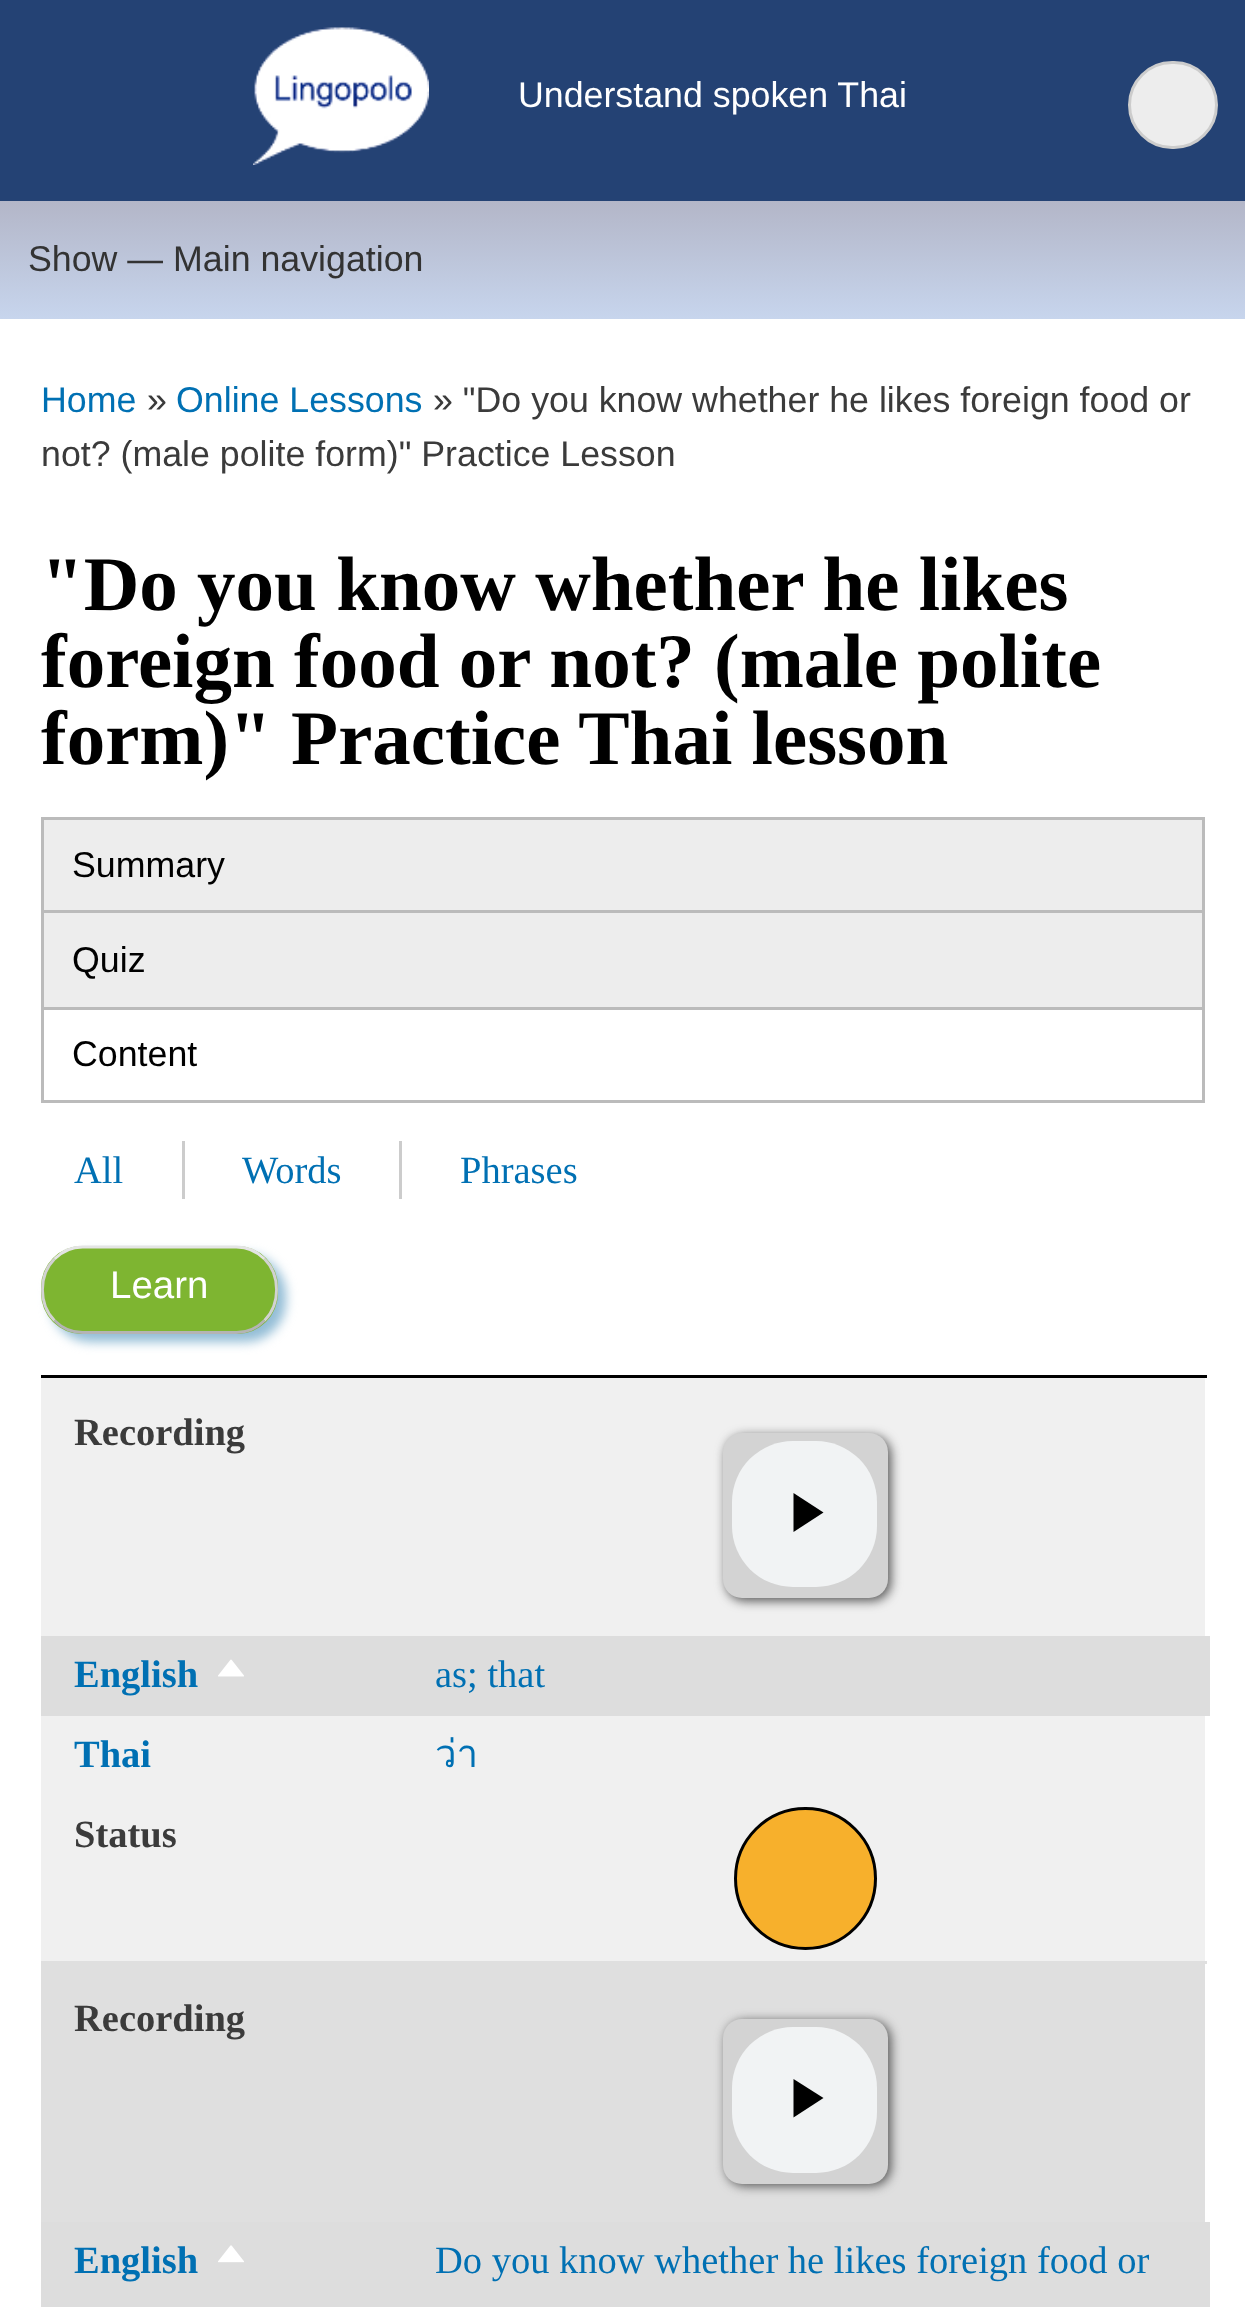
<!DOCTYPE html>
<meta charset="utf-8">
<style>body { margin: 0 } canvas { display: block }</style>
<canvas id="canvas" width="1245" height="2307"></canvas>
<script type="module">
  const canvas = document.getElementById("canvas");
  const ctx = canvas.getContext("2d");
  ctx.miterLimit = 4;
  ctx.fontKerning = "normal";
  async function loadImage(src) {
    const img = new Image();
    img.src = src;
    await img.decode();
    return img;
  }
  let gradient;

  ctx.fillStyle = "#244274";
  ctx.fillRect(0, 0, 1245, 2307);
  ctx.fillStyle = "#ffffff";
  ctx.fillRect(0, 319, 1245, 1988);
  ctx.drawImage(await loadImage("img1.png"), 253, 27, 176, 138);
  ctx.font = "35.75px Liberation Sans";
  ctx.fillText("Understand spoken Thai", 518, 107);
  ctx.fillStyle = "#ededed";
  ctx.beginPath();
  ctx.roundRect(1129.5, 62.5, 87, 85, 42.5);
  ctx.fill();
  ctx.strokeStyle = "#cccccc";
  ctx.lineWidth = 3;
  ctx.stroke();
  gradient = ctx.createLinearGradient(623, 201, 623, 319);
  gradient.addColorStop(0, "#b3b6c8");
  gradient.addColorStop(1, "#c7d5ed");
  ctx.fillStyle = gradient;
  ctx.fillRect(0, 201, 1245, 118);
  ctx.fillStyle = "#333333";
  ctx.fillText("Show — Main navigation", 28, 271);
  ctx.fillStyle = "#0070b3";
  ctx.fillText("Home", 41, 412);
  ctx.fillStyle = "#3b3b3b";
  ctx.fillText("»", 147, 412);
  ctx.fillStyle = "#0070b3";
  ctx.fillText("Online Lessons", 176, 412);
  ctx.fillStyle = "#3b3b3b";
  ctx.fillText("» \"Do you know whether he likes foreign food or", 433, 412);
  ctx.fillText("not? (male polite form)\" Practice Lesson", 41, 466);
  ctx.font = "bold 77px Liberation Serif";
  ctx.fillStyle = "#000000";
  ctx.fillText("\"Do you know whether he likes", 41, 610);
  ctx.fillText("foreign food or not? (male polite", 41, 687);
  ctx.fillText("form)\" Practice Thai lesson", 41, 764);
  ctx.fillStyle = "#bbbbbb";
  ctx.fillRect(41, 1100, 1164, 3);
  ctx.fillStyle = "#ededed";
  ctx.fillRect(44, 820, 1158, 90);
  ctx.fillStyle = "#bbbbbb";
  ctx.fillRect(41, 817, 1164, 3);
  ctx.fillRect(1202, 817, 3, 93);
  ctx.fillRect(41, 817, 3, 93);
  ctx.font = "35.75px Liberation Sans";
  ctx.fillStyle = "#000000";
  ctx.fillText("Summary", 72, 877);
  ctx.fillStyle = "#ededed";
  ctx.fillRect(44, 913, 1158, 94);
  ctx.fillStyle = "#bbbbbb";
  ctx.fillRect(41, 910, 1164, 3);
  ctx.fillRect(1202, 910, 3, 97);
  ctx.fillRect(41, 910, 3, 97);
  ctx.fillStyle = "#000000";
  ctx.fillText("Quiz", 72, 972);
  ctx.fillStyle = "#bbbbbb";
  ctx.fillRect(41, 1007, 1164, 3);
  ctx.fillRect(1202, 1007, 3, 93);
  ctx.fillRect(41, 1007, 3, 93);
  ctx.fillStyle = "#000000";
  ctx.fillText("Content", 72, 1066);
  ctx.fillStyle = "#cccccc";
  ctx.fillRect(182, 1141, 3, 58);
  ctx.font = "38.5px Liberation Serif";
  ctx.fillStyle = "#0070b3";
  ctx.fillText("All", 74, 1183);
  ctx.fillStyle = "#cccccc";
  ctx.fillRect(399, 1141, 3, 58);
  ctx.fillStyle = "#0070b3";
  ctx.fillText("Words", 242, 1183);
  ctx.fillText("Phrases", 460, 1183);
  ctx.fillStyle = "#93bdd6";
  ctx.filter = "blur(5.5px)";
  ctx.beginPath();
  ctx.roundRect(50, 1254, 236, 88, 41);
  ctx.fill();
  ctx.filter = "none";
  ctx.fillStyle = "#7eb531";
  ctx.beginPath();
  ctx.roundRect(41, 1246, 237, 88, 41);
  ctx.fill();
  ctx.beginPath();
  ctx.moveTo(54.5, 1259);
  ctx.bezierCurveTo(62, 1251.5, 72, 1247, 82.5, 1247);
  ctx.lineTo(236.5, 1247);
  ctx.bezierCurveTo(247, 1247, 257, 1251.5, 264.5, 1259);
  ctx.strokeStyle = "#e4e4e4";
  ctx.lineWidth = 2.8;
  ctx.stroke();
  ctx.beginPath();
  ctx.moveTo(264.5, 1259);
  ctx.bezierCurveTo(280.5, 1275, 280.5, 1304.5, 264.5, 1320.5);
  ctx.strokeStyle = "#d2d2d2";
  ctx.stroke();
  ctx.beginPath();
  ctx.moveTo(264.5, 1320.5);
  ctx.bezierCurveTo(257, 1328, 247, 1332.5, 236.5, 1332.5);
  ctx.lineTo(82.5, 1332.5);
  ctx.bezierCurveTo(72, 1332.5, 62, 1328, 54.5, 1320.5);
  ctx.strokeStyle = "#b4b4b4";
  ctx.stroke();
  ctx.beginPath();
  ctx.moveTo(54.5, 1320.5);
  ctx.bezierCurveTo(38.5, 1304.5, 38.5, 1275, 54.5, 1259);
  ctx.strokeStyle = "#d2d2d2";
  ctx.stroke();
  ctx.font = "38.5px Liberation Sans";
  ctx.fillStyle = "#ffffff";
  ctx.fillText("Learn", 110, 1298);
  ctx.fillStyle = "#000000";
  ctx.fillRect(41, 1375, 1166, 3);
  ctx.fillStyle = "#f0f0f0";
  ctx.fillRect(41, 1378, 1164, 583);
  ctx.fillStyle = "#dfdfdf";
  ctx.fillRect(41, 1961, 1166, 3);
  ctx.font = "bold 38.5px Liberation Serif";
  ctx.fillStyle = "#3b3b3b";
  ctx.fillText("Recording", 74, 1445);
  ctx.fillStyle = "#555555";
  ctx.filter = "blur(5.5px)";
  ctx.beginPath();
  ctx.roundRect(726, 1436, 165, 165, 19);
  ctx.fill();
  ctx.filter = "none";
  ctx.fillStyle = "#d3d3d3";
  ctx.beginPath();
  ctx.roundRect(723, 1433, 165, 165, 19);
  ctx.fill();
  ctx.fillStyle = "#f1f3f4";
  ctx.beginPath();
  ctx.roundRect(732, 1441, 145, 146, 61);
  ctx.fill();
  ctx.fillStyle = "#000000";
  ctx.beginPath();
  ctx.moveTo(793.5, 1493);
  ctx.lineTo(793.5, 1532);
  ctx.lineTo(823.5, 1512.5);
  ctx.closePath();
  ctx.fill("evenodd");
  ctx.fillStyle = "#dddddd";
  ctx.fillRect(41, 1636, 1169, 80);
  ctx.fillStyle = "#0070b3";
  ctx.fillText("English", 74, 1687);
  ctx.drawImage(await loadImage("img2.png"), 218, 1659, 26, 18);
  ctx.font = "38.5px Liberation Serif";
  ctx.fillText("as; that", 435, 1687);
  ctx.font = "bold 38.5px Liberation Serif";
  ctx.fillText("Thai", 74, 1767);
  ctx.font = "38.5px Loma";
  ctx.fillText("ว่า", 435, 1767);
  ctx.font = "bold 38.5px Liberation Serif";
  ctx.fillStyle = "#3b3b3b";
  ctx.fillText("Status", 74, 1847);
  ctx.fillStyle = "#f7b02c";
  ctx.beginPath();
  ctx.arc(805.5, 1878.5, 70, 0, Math.PI * 2);
  ctx.fill();
  ctx.strokeStyle = "#000000";
  ctx.lineWidth = 3;
  ctx.stroke();
  ctx.fillStyle = "#dfdfdf";
  ctx.fillRect(41, 1964, 1164, 258);
  ctx.fillStyle = "#3b3b3b";
  ctx.fillText("Recording", 74, 2031);
  ctx.fillStyle = "#555555";
  ctx.filter = "blur(5.5px)";
  ctx.beginPath();
  ctx.roundRect(726, 2021, 165, 165, 19);
  ctx.fill();
  ctx.filter = "none";
  ctx.fillStyle = "#d3d3d3";
  ctx.beginPath();
  ctx.roundRect(723, 2019, 165, 165, 19);
  ctx.fill();
  ctx.fillStyle = "#f1f3f4";
  ctx.beginPath();
  ctx.roundRect(732, 2027, 145, 146, 61);
  ctx.fill();
  ctx.fillStyle = "#000000";
  ctx.beginPath();
  ctx.moveTo(793.5, 2079);
  ctx.lineTo(793.5, 2117.5);
  ctx.lineTo(823.5, 2098);
  ctx.closePath();
  ctx.fill("evenodd");
  ctx.fillStyle = "#dddddd";
  ctx.fillRect(41, 2222, 1169, 85);
  ctx.fillStyle = "#0070b3";
  ctx.fillText("English", 74, 2273);
  ctx.drawImage(await loadImage("img3.png"), 218, 2245, 26, 18);
  ctx.font = "38.5px Liberation Serif";
  ctx.fillText("Do you know whether he likes foreign food or", 435, 2273);
</script>
